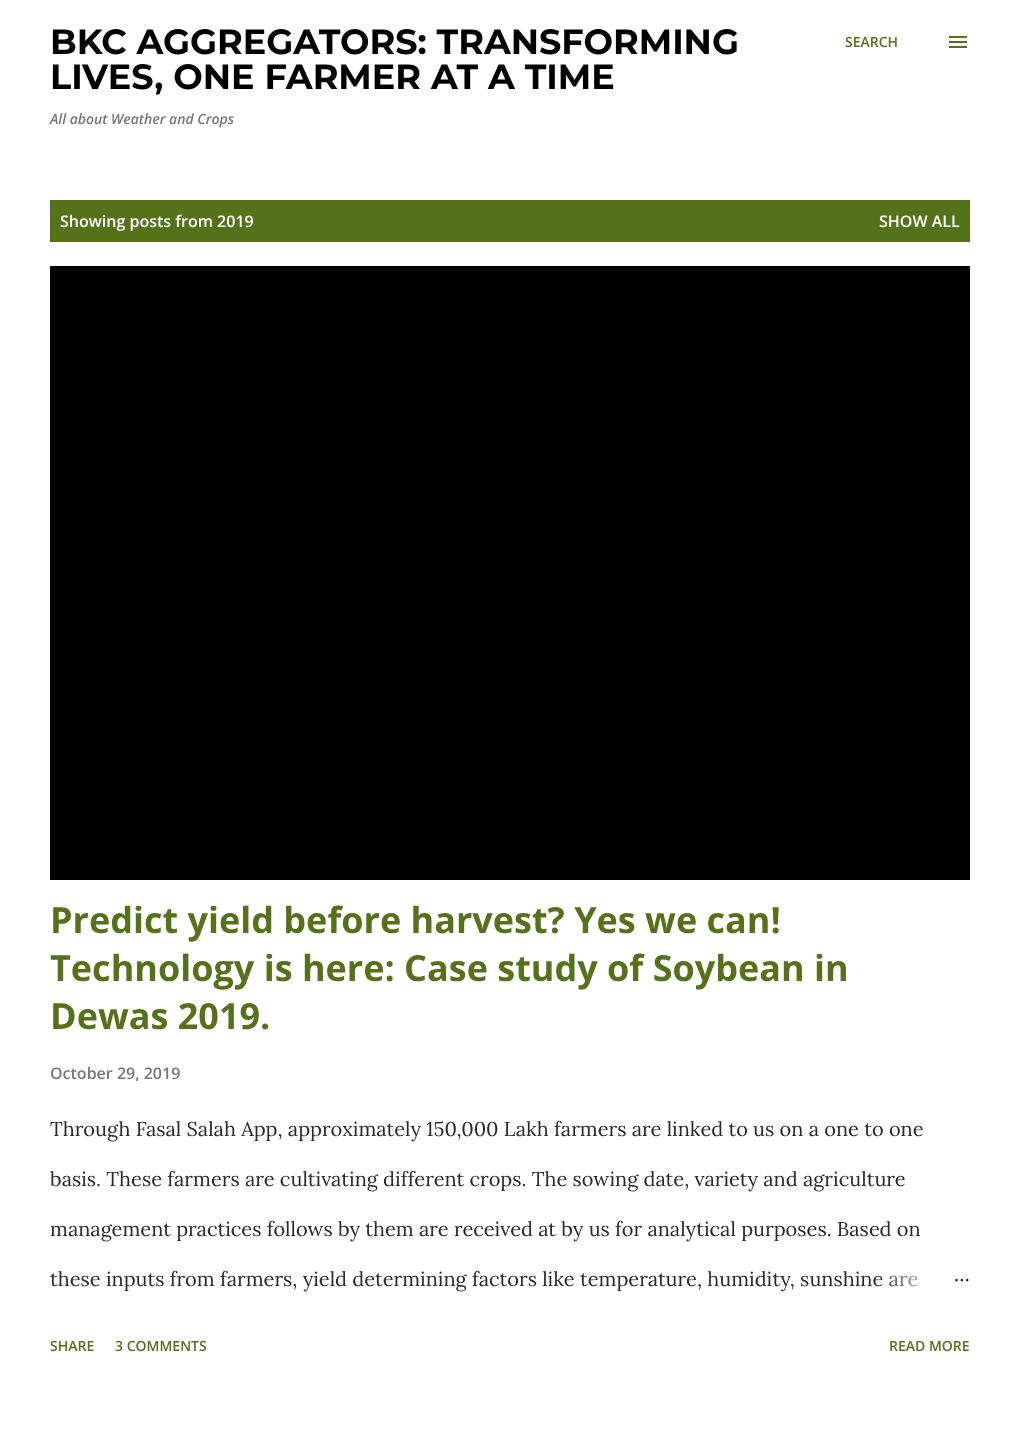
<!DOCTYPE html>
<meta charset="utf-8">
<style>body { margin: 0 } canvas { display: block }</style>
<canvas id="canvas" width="1020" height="1447"></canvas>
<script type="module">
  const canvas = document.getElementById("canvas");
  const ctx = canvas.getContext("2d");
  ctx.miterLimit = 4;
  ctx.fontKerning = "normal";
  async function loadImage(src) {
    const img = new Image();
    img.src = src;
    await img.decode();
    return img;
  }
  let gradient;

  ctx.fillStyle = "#ffffff";
  ctx.fillRect(0, 0, 1020, 1447);
  ctx.font = "100 35px Montserrat";
  ctx.fillStyle = "#000000";
  ctx.fillText("BKC AGGREGATORS: TRANSFORMING", 50, 54);
  ctx.fillText("LIVES, ONE FARMER AT A TIME", 50, 89);
  ctx.font = "italic 600 14px Open Sans";
  ctx.fillStyle = "#767676";
  ctx.fillText("All about Weather and Crops", 50, 124);
  ctx.font = "600 14px Open Sans";
  ctx.fillStyle = "#55721a";
  ctx.fillText("SEARCH", 845, 47);
  ctx.drawImage(await loadImage("img1.png"), 949, 36, 18, 12);
  ctx.fillRect(50, 200, 920, 42);
  ctx.font = "600 16px Open Sans";
  ctx.fillStyle = "#ffffff";
  ctx.fillText("Showing posts from 2019", 60, 227);
  ctx.fillText("SHOW ALL", 879, 227);
  ctx.fillStyle = "#000000";
  ctx.fillRect(50, 266, 920, 614);
  ctx.font = "bold 36px Open Sans";
  ctx.fillStyle = "#55721a";
  ctx.fillText("Predict yield before harvest? Yes we can!", 50, 933);
  ctx.fillText("Technology is here: Case study of Soybean in", 50, 981);
  ctx.fillText("Dewas 2019.", 50, 1029);
  ctx.font = "600 16px Open Sans";
  ctx.fillStyle = "#767676";
  ctx.fillText("October 29, 2019", 50, 1079);
  ctx.font = "20px Lora";
  ctx.fillStyle = "#292929";
  ctx.fillText("Through Fasal Salah App, approximately 150,000 Lakh farmers are linked to us on a one to one", 50, 1136);
  ctx.fillText("basis. These farmers are cultivating different crops. The sowing date, variety and agriculture", 50, 1186);
  ctx.fillText("management practices follows by them are received at by us for analytical purposes. Based on", 50, 1236);
  ctx.fillText("these inputs from farmers, yield determining factors like temperature, humidity, sunshine are", 50, 1286);
  gradient = ctx.createLinearGradient(970, 1279, 874, 1279);
  gradient.addColorStop(0, "#ffffff");
  gradient.addColorStop(0.2, "#ffffff");
  gradient.addColorStop(1, "rgba(255, 255, 255, 0)");
  ctx.fillStyle = gradient;
  ctx.fillRect(876, 1275, 42, 12);
  ctx.fillStyle = "#000000";
  ctx.fillText("…", 954, 1281);
  ctx.font = "600 14px Open Sans";
  ctx.fillStyle = "#55721a";
  ctx.fillText("SHARE", 50, 1351);
  ctx.fillText("3 COMMENTS", 115, 1351);
  ctx.fillText("READ MORE", 889, 1351);
</script>
